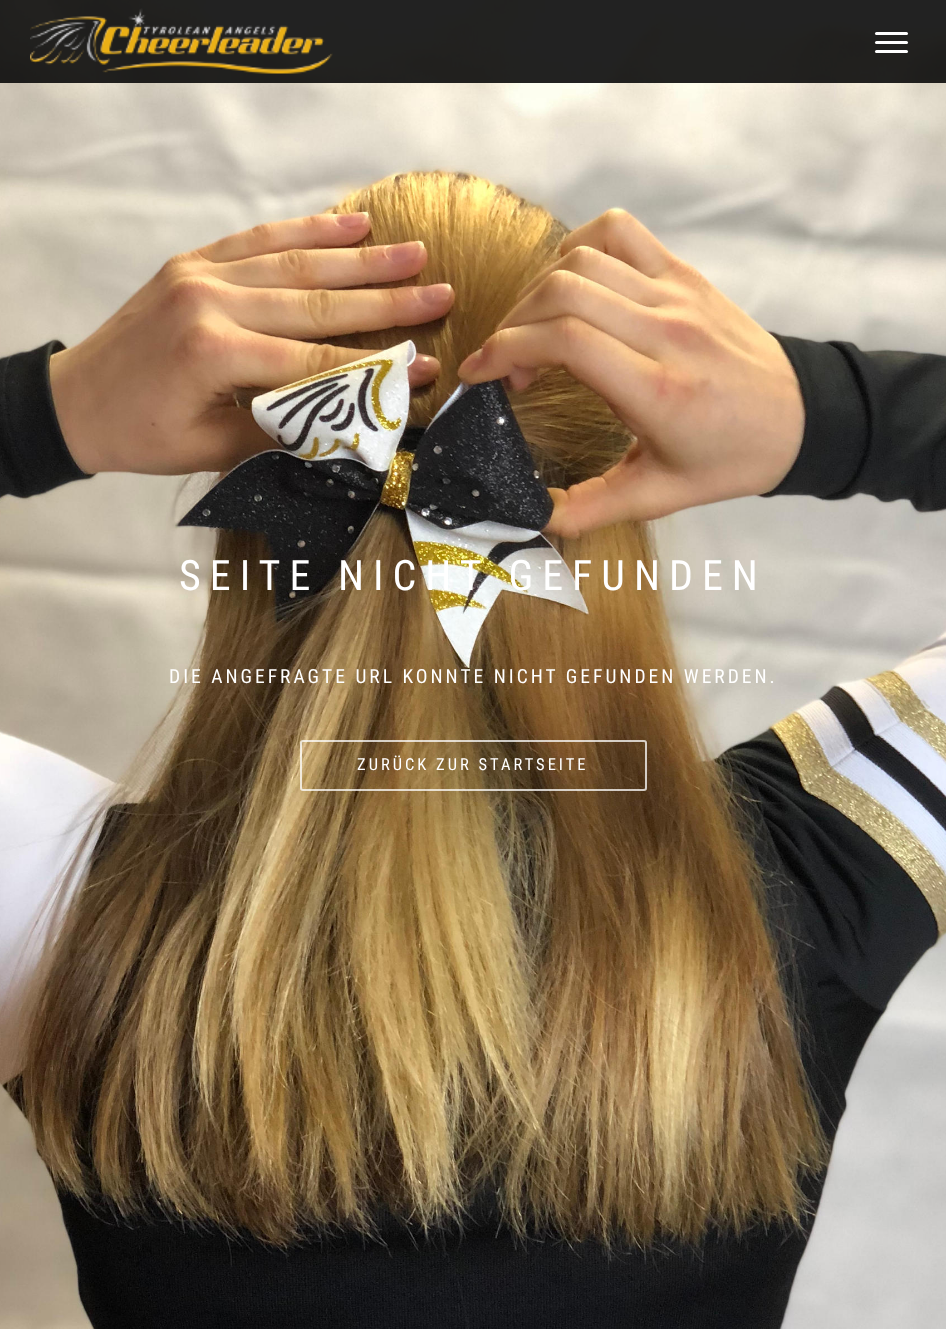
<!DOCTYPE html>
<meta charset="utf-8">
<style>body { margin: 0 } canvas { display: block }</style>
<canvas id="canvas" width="946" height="1329"></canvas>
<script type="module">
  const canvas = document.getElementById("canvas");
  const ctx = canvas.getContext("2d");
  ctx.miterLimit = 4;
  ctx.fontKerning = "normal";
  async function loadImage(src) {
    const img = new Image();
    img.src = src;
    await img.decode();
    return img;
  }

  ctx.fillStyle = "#ffffff";
  ctx.fillRect(0, 0, 946, 1329);
  ctx.drawImage(await loadImage("img2.png"), 0, 0, 946, 1329);
  ctx.fillStyle = "rgba(10, 10, 10, 0.9)";
  ctx.fillRect(0, 0, 946, 83);
  ctx.drawImage(await loadImage("img1.png"), 30, 8, 303, 66);
  ctx.fillStyle = "#ffffff";
  ctx.beginPath();
  ctx.roundRect(875, 32, 33, 3, 1.5);
  ctx.fill();
  ctx.beginPath();
  ctx.roundRect(875, 41, 33, 3, 1.5);
  ctx.fill();
  ctx.beginPath();
  ctx.roundRect(875, 50, 33, 3, 1.5);
  ctx.fill();
  ctx.letterSpacing = "9px";
  ctx.font = "42px Roboto Condensed";
  ctx.fillText("SEITE NICHT GEFUNDEN", 179, 590);
  ctx.letterSpacing = "3px";
  ctx.font = "19.5px Roboto Condensed";
  ctx.fillText("DIE ANGEFRAGTE URL KONNTE NICHT GEFUNDEN WERDEN.", 169, 683);
  ctx.beginPath();
  ctx.roundRect(301, 741, 345, 49, 2);
  ctx.strokeStyle = "rgba(255, 255, 255, 0.75)";
  ctx.lineWidth = 2;
  ctx.stroke();
  ctx.font = "16.5px Roboto Condensed";
  ctx.fillText("ZURÜCK ZUR STARTSEITE", 357, 770);
</script>
